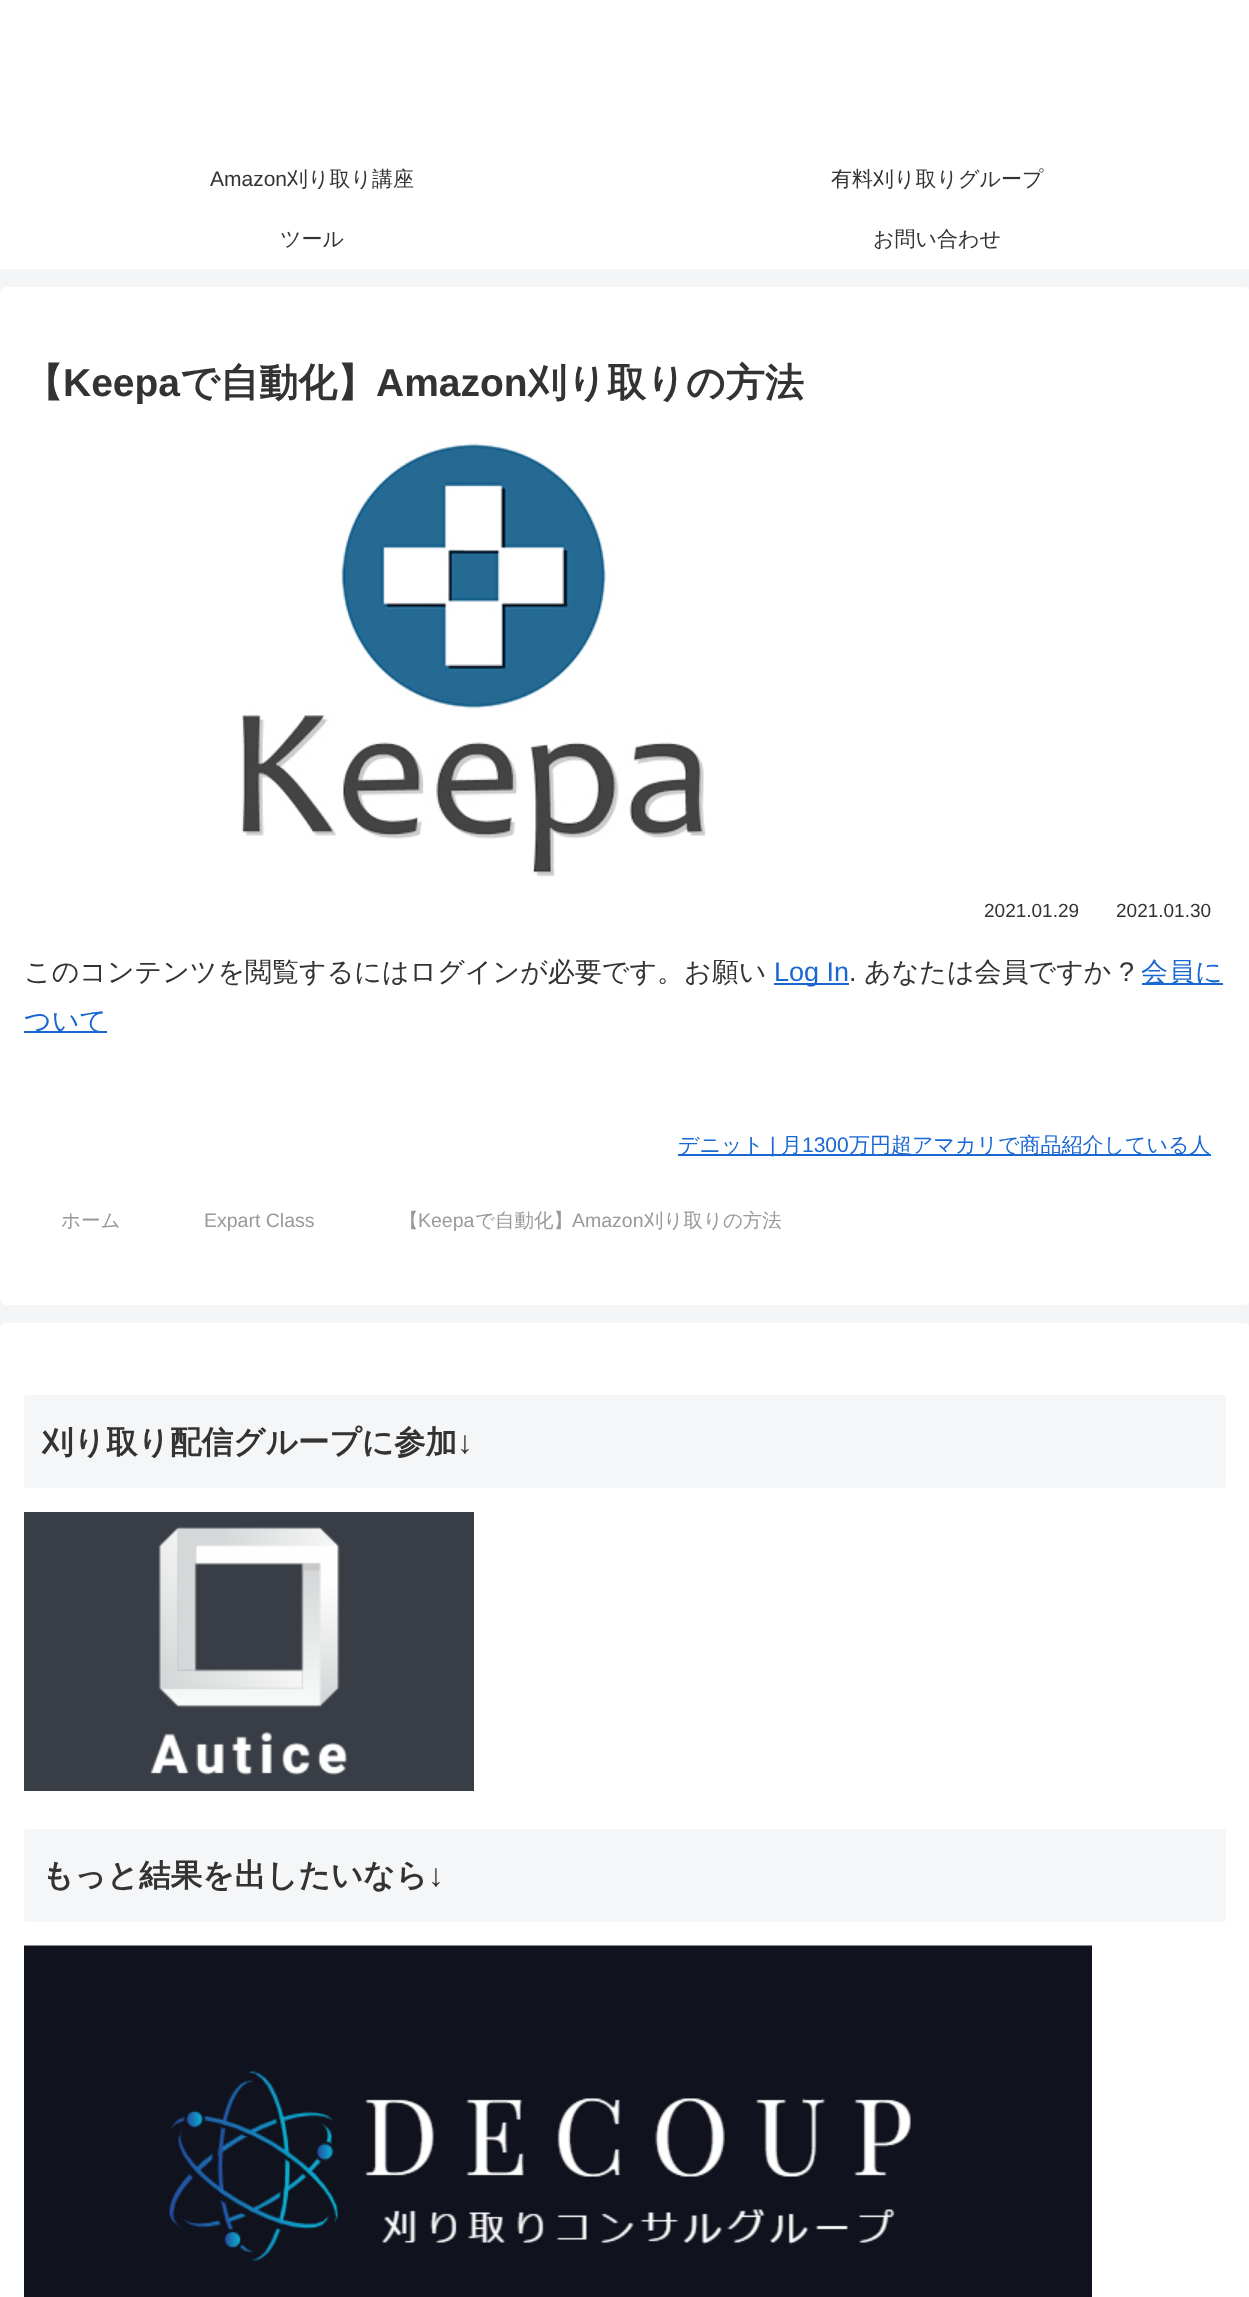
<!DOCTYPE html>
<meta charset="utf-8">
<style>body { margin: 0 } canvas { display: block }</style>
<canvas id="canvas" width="1249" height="2297"></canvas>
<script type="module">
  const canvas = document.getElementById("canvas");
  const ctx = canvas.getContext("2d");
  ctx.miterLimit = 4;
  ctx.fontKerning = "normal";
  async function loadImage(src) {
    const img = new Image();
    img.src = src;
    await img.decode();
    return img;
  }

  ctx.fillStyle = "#f4f5f7";
  ctx.fillRect(0, 0, 1249, 2297);
  ctx.fillStyle = "#ffffff";
  ctx.fillRect(0, 0, 1249, 269);
  ctx.font = "21px Liberation Sans";
  ctx.fillStyle = "#333333";
  ctx.fillText("Amazon", 210, 186);
  ctx.font = "500 21px WenQuanYi Zen Hei";
  ctx.fillText("刈り取り講座", 287, 186);
  ctx.fillText("有料刈り取りグループ", 831, 186);
  ctx.fillText("ツール", 280, 246);
  ctx.fillText("お問い合わせ", 873, 246);
  ctx.fillStyle = "#ffffff";
  ctx.beginPath();
  ctx.roundRect(0, 287, 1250, 1018, 6);
  ctx.fill();
  ctx.font = "bold 39px WenQuanYi Zen Hei";
  ctx.fillStyle = "#333333";
  ctx.fillText("【", 24, 396);
  ctx.font = "bold 39px Liberation Sans";
  ctx.fillText("Keepa", 63, 396);
  ctx.font = "bold 39px WenQuanYi Zen Hei";
  ctx.fillText("で自動化】", 180, 396);
  ctx.font = "bold 39px Liberation Sans";
  ctx.fillText("Amazon", 376, 396);
  ctx.font = "bold 39px WenQuanYi Zen Hei";
  ctx.fillText("刈り取りの方法", 528, 396);
  ctx.drawImage(await loadImage("img1.png"), 241, 443, 465, 434);
  ctx.font = "19px Liberation Sans";
  ctx.fillText("2021.01.29", 984, 917);
  ctx.fillText("2021.01.30", 1116, 917);
  ctx.font = "500 27px WenQuanYi Zen Hei";
  ctx.fillText("このコンテンツを閲覧するにはログインが必要です。お願い", 24, 981);
  ctx.fillStyle = "#1967d2";
  ctx.fillRect(774, 983, 75, 2);
  ctx.font = "27px Liberation Sans";
  ctx.fillText("Log In", 774, 981);
  ctx.fillStyle = "#333333";
  ctx.fillText(".", 849, 981);
  ctx.font = "500 27px WenQuanYi Zen Hei";
  ctx.fillText("あなたは会員ですか", 864, 981);
  ctx.font = "27px Liberation Sans";
  ctx.fillText("?", 1119, 981);
  ctx.fillStyle = "#1967d2";
  ctx.fillRect(1142, 983, 81, 2);
  ctx.font = "500 27px WenQuanYi Zen Hei";
  ctx.fillText("会員に", 1141, 981);
  ctx.fillRect(24, 1031, 83, 2);
  ctx.fillText("ついて", 24, 1030);
  ctx.fillRect(678, 1154, 533, 2);
  ctx.font = "500 21px WenQuanYi Zen Hei";
  ctx.fillText("デニット", 678, 1152);
  ctx.font = "21px Liberation Sans";
  ctx.fillText("|", 770, 1152);
  ctx.font = "500 21px WenQuanYi Zen Hei";
  ctx.fillText("月", 781, 1152);
  ctx.font = "21px Liberation Sans";
  ctx.fillText("1300", 802, 1152);
  ctx.font = "500 21px WenQuanYi Zen Hei";
  ctx.fillText("万円超アマカリで商品紹介している人", 849, 1152);
  ctx.font = "500 19.5px WenQuanYi Zen Hei";
  ctx.fillStyle = "#999999";
  ctx.fillText("ホーム", 61, 1227);
  ctx.font = "19.5px Liberation Sans";
  ctx.fillText("Expart Class", 204, 1227);
  ctx.font = "500 19.5px WenQuanYi Zen Hei";
  ctx.fillText("【", 399, 1227);
  ctx.font = "19.5px Liberation Sans";
  ctx.fillText("Keepa", 418, 1227);
  ctx.font = "500 19.5px WenQuanYi Zen Hei";
  ctx.fillText("で自動化】", 475, 1227);
  ctx.font = "19.5px Liberation Sans";
  ctx.fillText("Amazon", 572, 1227);
  ctx.font = "500 19.5px WenQuanYi Zen Hei";
  ctx.fillText("刈り取りの方法", 644, 1227);
  ctx.fillStyle = "#ffffff";
  ctx.beginPath();
  ctx.roundRect(0, 1323, 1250, 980, 6);
  ctx.fill();
  ctx.fillStyle = "#f5f6f7";
  ctx.beginPath();
  ctx.roundRect(24, 1395, 1202, 93, 3);
  ctx.fill();
  ctx.font = "bold 31.6px WenQuanYi Zen Hei";
  ctx.fillStyle = "#333333";
  ctx.fillText("刈り取り配信グループに参加", 42, 1453);
  ctx.font = "bold 31.6px Liberation Sans";
  ctx.fillText("↓", 457, 1453);
  ctx.drawImage(await loadImage("img2.png"), 24, 1512, 450, 279);
  ctx.fillStyle = "#f5f6f7";
  ctx.beginPath();
  ctx.roundRect(24, 1829, 1202, 93, 3);
  ctx.fill();
  ctx.font = "bold 31.6px WenQuanYi Zen Hei";
  ctx.fillStyle = "#333333";
  ctx.fillText("もっと結果を出したいなら", 42, 1886);
  ctx.font = "bold 31.6px Liberation Sans";
  ctx.fillText("↓", 428, 1886);
  ctx.drawImage(await loadImage("img3.png"), 24, 1945, 1068, 352);
</script>
